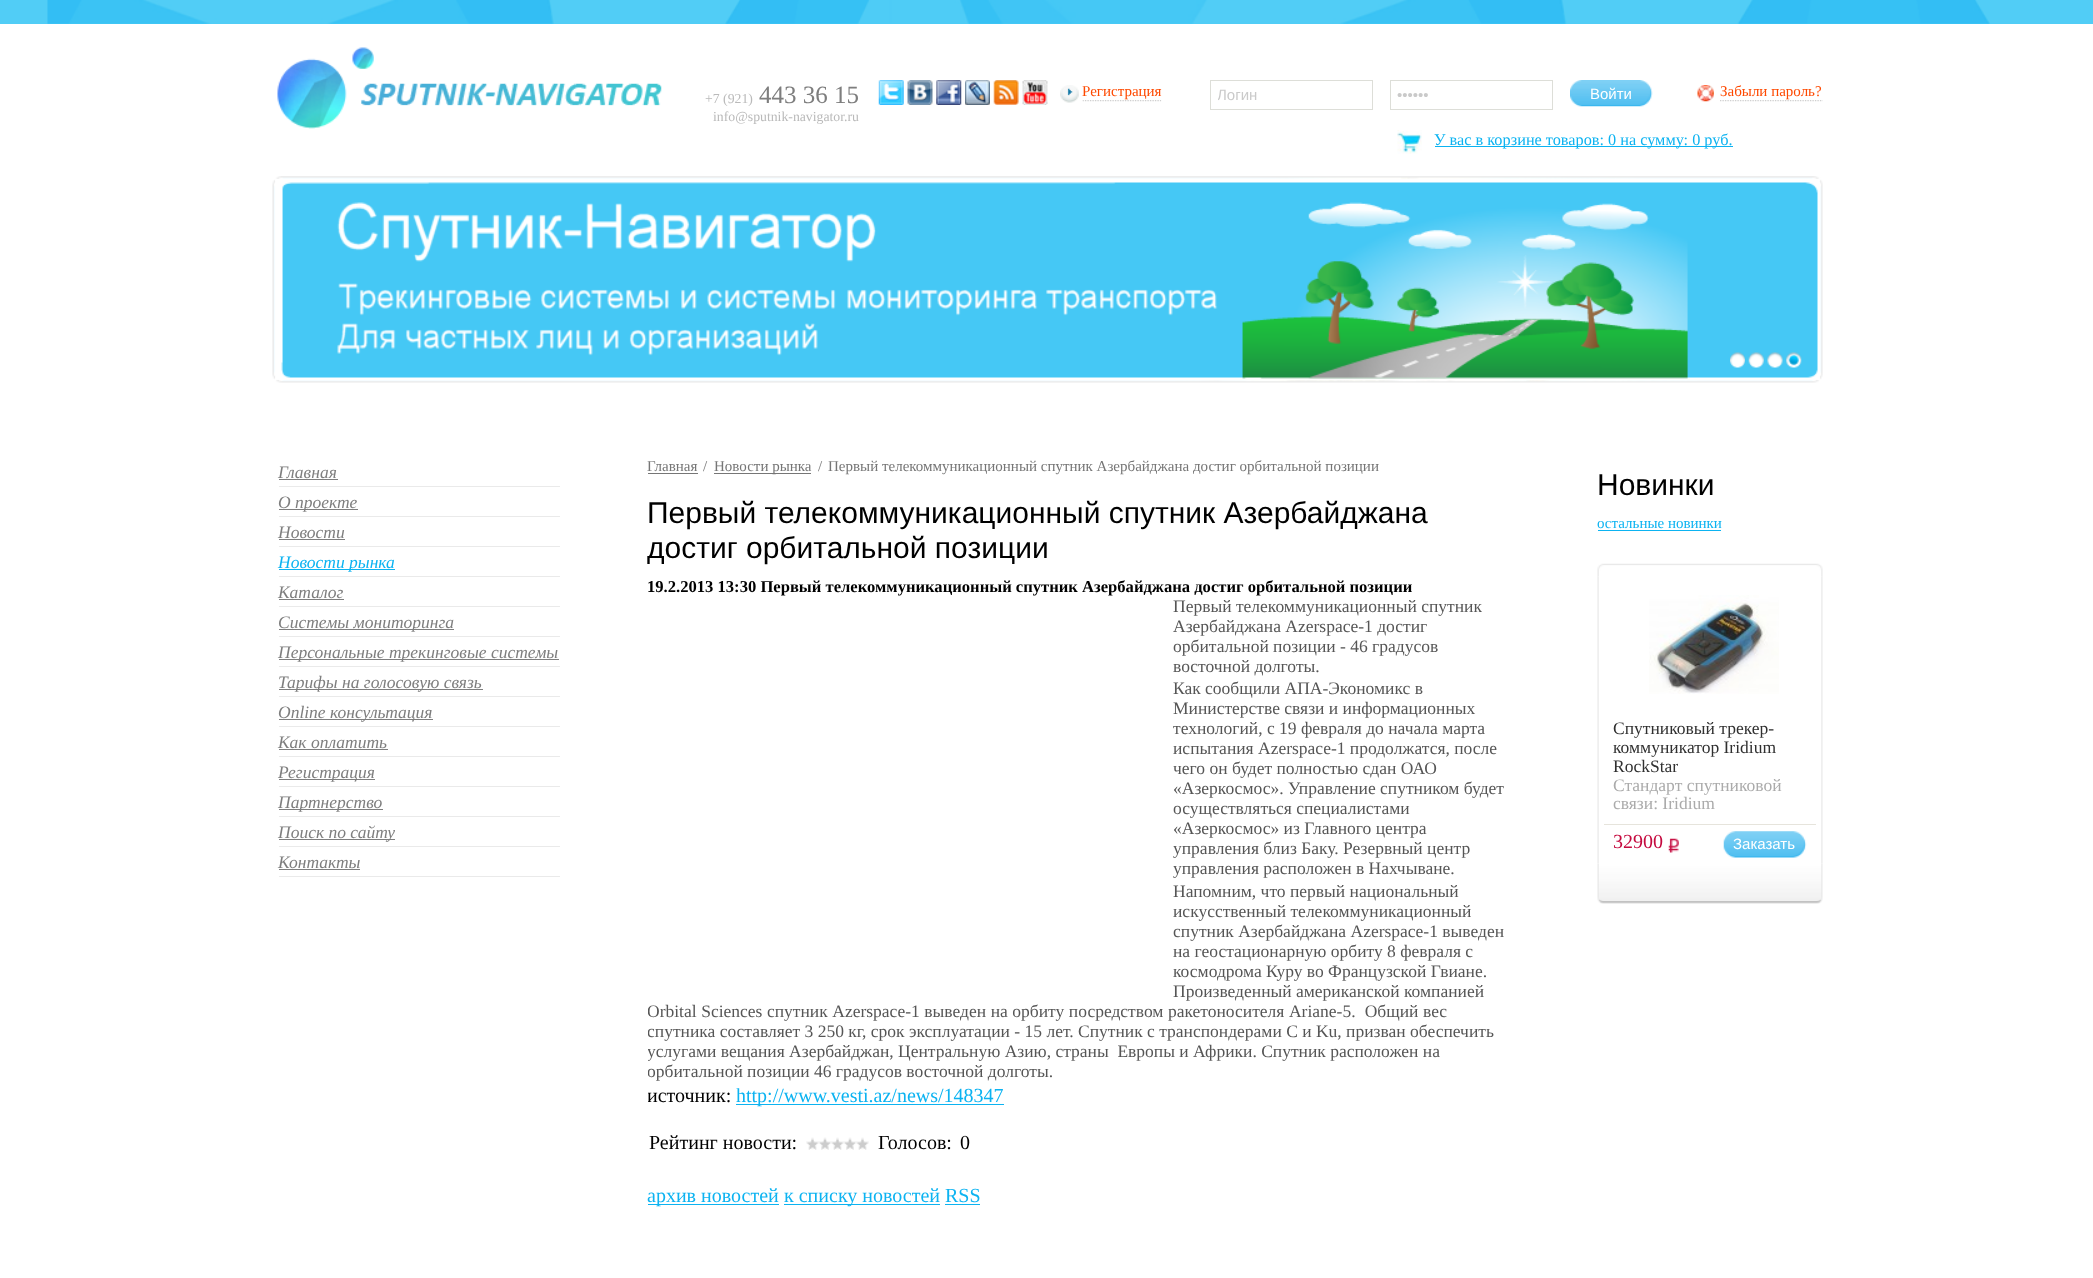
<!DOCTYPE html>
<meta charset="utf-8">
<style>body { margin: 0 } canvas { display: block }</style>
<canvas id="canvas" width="2093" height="1278"></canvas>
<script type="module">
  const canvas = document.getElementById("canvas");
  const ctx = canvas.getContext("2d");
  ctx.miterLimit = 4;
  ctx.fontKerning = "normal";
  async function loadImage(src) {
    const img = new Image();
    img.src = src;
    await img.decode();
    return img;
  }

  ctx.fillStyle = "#ffffff";
  ctx.fillRect(0, 0, 2093, 1278);
  ctx.fillStyle = "#51cdf6";
  ctx.fillRect(0, 0, 2093, 24);
  ctx.drawImage(await loadImage("img1.png"), 47, 0, 1943, 24);
  ctx.drawImage(await loadImage("img2.png"), 277, 47, 385, 82);
  ctx.font = "13.75px Liberation Serif";
  ctx.fillStyle = "#bababa";
  ctx.fillText("+7 (921)", 705, 103);
  ctx.font = "25px Liberation Serif";
  ctx.fillStyle = "#7e7e7e";
  ctx.fillText("443 36 15", 759, 103);
  ctx.font = "13.75px Liberation Serif";
  ctx.fillStyle = "#bababa";
  ctx.fillText("info@sputnik-navigator.ru", 713, 121);
  ctx.drawImage(await loadImage("img3.png"), 878, 80, 26, 25);
  ctx.drawImage(await loadImage("img4.png"), 907, 80, 26, 25);
  ctx.drawImage(await loadImage("img5.png"), 936, 80, 26, 25);
  ctx.drawImage(await loadImage("img6.png"), 965, 80, 25, 25);
  ctx.drawImage(await loadImage("img7.png"), 993, 80, 26, 25);
  ctx.drawImage(await loadImage("img8.png"), 1022, 80, 26, 25);
  ctx.drawImage(await loadImage("img9.png"), 1060, 85, 19, 18);
  ctx.drawImage(await loadImage("img10.png"), 1082, 100, 80, 2);
  ctx.font = "15px Liberation Serif";
  ctx.fillStyle = "#fe4900";
  ctx.fillText("Регистрация", 1082, 96);
  ctx.strokeStyle = "#ddded8";
  ctx.strokeRect(1210.5, 80.5, 162, 29);
  ctx.save();
  ctx.beginPath();
  ctx.rect(1218, 86, 147, 18);
  ctx.clip();
  ctx.font = "15px Liberation Sans";
  ctx.fillStyle = "#cacaca";
  ctx.fillText("Логин", 1217, 100);
  ctx.restore();
  ctx.strokeRect(1390.5, 80.5, 162, 29);
  ctx.font = "15px Liberation Sans";
  ctx.fillStyle = "#cacaca";
  ctx.fillText("••••••", 1397, 100);
  ctx.drawImage(await loadImage("img11.png"), 1570, 80, 83, 27);
  ctx.fillStyle = "#ffffff";
  ctx.fillText("Войти", 1590, 99);
  ctx.drawImage(await loadImage("img12.png"), 1697, 85, 17, 17);
  ctx.drawImage(await loadImage("img13.png"), 1720, 100, 103, 2);
  ctx.font = "15px Liberation Serif";
  ctx.fillStyle = "#fe4900";
  ctx.fillText("Забыли пароль?", 1720, 96);
  ctx.drawImage(await loadImage("img14.png"), 1397, 130, 25, 24);
  ctx.fillStyle = "#0cb3f1";
  ctx.fillRect(1435, 146, 298, 1);
  ctx.font = "16.25px Liberation Serif";
  ctx.fillText("У вас в корзине товаров: 0 на сумму: 0 руб.", 1434, 145);
  ctx.drawImage(await loadImage("img15.png"), 272, 176, 1551, 207);
  ctx.drawImage(await loadImage("img16.png"), 281, 182, 1537, 197);
  ctx.drawImage(await loadImage("img17.png"), 1730, 352, 15, 16);
  ctx.drawImage(await loadImage("img18.png"), 1748, 352, 16, 16);
  ctx.drawImage(await loadImage("img19.png"), 1767, 352, 16, 16);
  ctx.drawImage(await loadImage("img20.png"), 1786, 352, 16, 16);
  ctx.fillStyle = "#eaeaea";
  ctx.fillRect(279, 486, 281, 1);
  ctx.font = "italic 17.5px Liberation Serif";
  ctx.fillStyle = "#7e7e7e";
  ctx.fillText("Главная", 278, 478);
  ctx.fillRect(279, 479, 59, 1);
  ctx.fillStyle = "#eaeaea";
  ctx.fillRect(279, 516, 281, 1);
  ctx.fillStyle = "#7e7e7e";
  ctx.fillRect(279, 509, 79, 1);
  ctx.fillText("О проекте", 278, 508);
  ctx.fillStyle = "#eaeaea";
  ctx.fillRect(279, 546, 281, 1);
  ctx.fillStyle = "#7e7e7e";
  ctx.fillText("Новости", 278, 538);
  ctx.fillRect(279, 539, 66, 1);
  ctx.fillStyle = "#eaeaea";
  ctx.fillRect(279, 576, 281, 1);
  ctx.fillStyle = "#0cb3f1";
  ctx.fillRect(279, 569, 116, 1);
  ctx.fillText("Новости рынка", 278, 568);
  ctx.fillStyle = "#eaeaea";
  ctx.fillRect(279, 606, 281, 1);
  ctx.fillStyle = "#7e7e7e";
  ctx.fillText("Каталог", 278, 598);
  ctx.fillRect(279, 599, 65, 1);
  ctx.fillStyle = "#eaeaea";
  ctx.fillRect(279, 636, 281, 1);
  ctx.fillStyle = "#7e7e7e";
  ctx.fillRect(279, 629, 175, 1);
  ctx.fillText("Системы мониторинга", 278, 628);
  ctx.fillStyle = "#eaeaea";
  ctx.fillRect(279, 666, 281, 1);
  ctx.fillStyle = "#7e7e7e";
  ctx.fillRect(279, 659, 280, 1);
  ctx.fillText("Персональные трекинговые системы", 278, 658);
  ctx.fillStyle = "#eaeaea";
  ctx.fillRect(279, 696, 281, 1);
  ctx.fillStyle = "#7e7e7e";
  ctx.fillRect(279, 689, 204, 1);
  ctx.fillText("Тарифы на голосовую связь", 278, 688);
  ctx.fillStyle = "#eaeaea";
  ctx.fillRect(279, 726, 281, 1);
  ctx.fillStyle = "#7e7e7e";
  ctx.fillRect(279, 719, 154, 1);
  ctx.fillText("Online консультация", 278, 718);
  ctx.fillStyle = "#eaeaea";
  ctx.fillRect(279, 756, 281, 1);
  ctx.fillStyle = "#7e7e7e";
  ctx.fillText("Как оплатить", 278, 748);
  ctx.fillRect(279, 749, 109, 1);
  ctx.fillStyle = "#eaeaea";
  ctx.fillRect(279, 786, 281, 1);
  ctx.fillStyle = "#7e7e7e";
  ctx.fillRect(279, 779, 96, 1);
  ctx.fillText("Регистрация", 278, 778);
  ctx.fillStyle = "#eaeaea";
  ctx.fillRect(279, 816, 281, 1);
  ctx.fillStyle = "#7e7e7e";
  ctx.fillRect(279, 809, 104, 1);
  ctx.fillText("Партнерство", 278, 808);
  ctx.fillStyle = "#eaeaea";
  ctx.fillRect(279, 846, 281, 1);
  ctx.fillStyle = "#7e7e7e";
  ctx.fillRect(279, 839, 116, 1);
  ctx.fillText("Поиск по сайту", 278, 838);
  ctx.fillStyle = "#eaeaea";
  ctx.fillRect(279, 876, 281, 1);
  ctx.fillStyle = "#7e7e7e";
  ctx.fillText("Контакты", 278, 868);
  ctx.fillRect(279, 869, 81, 1);
  ctx.font = "15px Liberation Serif";
  ctx.fillStyle = "#767676";
  ctx.fillText("Главная", 647, 471);
  ctx.fillRect(648, 473, 50, 1);
  ctx.fillText("/", 703, 471);
  ctx.fillRect(714, 473, 97, 1);
  ctx.fillText("Новости рынка", 714, 471);
  ctx.fillText("/", 818, 471);
  ctx.fillText("Первый телекоммуникационный спутник Азербайджана достиг орбитальной позиции", 828, 471);
  ctx.font = "30px Liberation Sans";
  ctx.fillStyle = "#000000";
  ctx.fillText("Первый телекоммуникационный спутник Азербайджана", 647, 523);
  ctx.fillText("достиг орбитальной позиции", 647, 558);
  ctx.font = "bold 16.6px Liberation Serif";
  ctx.fillText("19.2.2013 13:30 Первый телекоммуникационный спутник Азербайджана достиг орбитальной позиции", 647, 592);
  ctx.font = "17.5px Liberation Serif";
  ctx.fillStyle = "#565656";
  ctx.fillText("Первый телекоммуникационный спутник", 1173, 612);
  ctx.fillText("Азербайджана Azerspace-1 достиг", 1173, 632);
  ctx.fillText("орбитальной позиции - 46 градусов", 1173, 652);
  ctx.fillText("восточной долготы.", 1173, 672);
  ctx.fillText("Как сообщили АПА-Экономикс в", 1173, 694);
  ctx.fillText("Министерстве связи и информационных", 1173, 714);
  ctx.fillText("технологий, с 19 февраля до начала марта", 1173, 734);
  ctx.fillText("испытания Azerspace-1 продолжатся, после", 1173, 754);
  ctx.fillText("чего он будет полностью сдан ОАО", 1173, 774);
  ctx.fillText("«Азеркосмос». Управление спутником будет", 1173, 794);
  ctx.fillText("осуществляться специалистами", 1173, 814);
  ctx.fillText("«Азеркосмос» из Главного центра", 1173, 834);
  ctx.fillText("управления близ Баку. Резервный центр", 1173, 854);
  ctx.fillText("управления расположен в Нахчыване.", 1173, 874);
  ctx.fillText("Напомним, что первый национальный", 1173, 897);
  ctx.fillText("искусственный телекоммуникационный", 1173, 917);
  ctx.fillText("спутник Азербайджана Azerspace-1 выведен", 1173, 937);
  ctx.fillText("на геостационарную орбиту 8 февраля с", 1173, 957);
  ctx.fillText("космодрома Куру во Французской Гвиане.", 1173, 977);
  ctx.fillText("Произведенный американской компанией", 1173, 997);
  ctx.save();
  ctx.beginPath();
  ctx.rect(648, 578, 862, 595);
  ctx.clip();
  ctx.wordSpacing = "0.2px";
  ctx.fillText("Orbital Sciences спутник Azerspace-1 выведен на орбиту посредством ракетоносителя Ariane-5.  Общий вес", 647, 1017);
  ctx.wordSpacing = "0px";
  ctx.fillText("спутника составляет 3 250 кг, срок эксплуатации - 15 лет. Спутник с транспондерами C и Ku, призван обеспечить", 647, 1037);
  ctx.fillText("услугами вещания Азербайджан, Центральную Азию, страны  Европы и Африки. Спутник расположен на", 647, 1057);
  ctx.fillText("орбитальной позиции 46 градусов восточной долготы.", 647, 1077);
  ctx.font = "20px Liberation Serif";
  ctx.fillStyle = "#000000";
  ctx.fillText("источник:", 647, 1102);
  ctx.restore();
  ctx.fillStyle = "#0cb3f1";
  ctx.fillRect(736, 1104, 268, 1);
  ctx.font = "20px Liberation Serif";
  ctx.fillText("http://www.vesti.az/news/148347", 736, 1102);
  ctx.fillStyle = "#000000";
  ctx.fillText("Рейтинг новости:", 649, 1149);
  ctx.drawImage(await loadImage("img21.png"), 806, 1137, 63, 13);
  ctx.fillText("Голосов:", 878, 1149);
  ctx.fillText("0", 960, 1149);
  ctx.fillStyle = "#0cb3f1";
  ctx.fillRect(648, 1204, 131, 1);
  ctx.fillText("архив новостей", 647, 1202);
  ctx.fillRect(784, 1204, 156, 1);
  ctx.fillText("к списку новостей RSS", 784, 1202);
  ctx.fillRect(945, 1204, 35, 1);
  ctx.font = "30px Liberation Sans";
  ctx.fillStyle = "#000000";
  ctx.fillText("Новинки", 1597, 495);
  ctx.font = "15px Liberation Serif";
  ctx.fillStyle = "#0cb3f1";
  ctx.fillText("остальные новинки", 1597, 528);
  ctx.fillRect(1598, 530, 123, 1);
  ctx.drawImage(await loadImage("img22.png"), 1597, 563, 226, 14);
  ctx.drawImage(await loadImage("img23.png"), 1597, 576, 226, 288);
  ctx.drawImage(await loadImage("img24.png"), 1649, 595, 130, 99);
  ctx.fillStyle = "#e6e4dc";
  ctx.fillRect(1604, 824, 212, 1);
  ctx.font = "17.5px Liberation Serif";
  ctx.fillStyle = "#303030";
  ctx.fillText("Спутниковый трекер-", 1613, 734);
  ctx.fillText("коммуникатор Iridium", 1613, 753);
  ctx.fillText("RockStar", 1613, 772);
  ctx.fillStyle = "#ababab";
  ctx.fillText("Стандарт спутниковой", 1613, 791);
  ctx.fillText("связи: Iridium", 1613, 809);
  ctx.drawImage(await loadImage("img25.png"), 1668, 838, 11, 15);
  ctx.font = "20px Liberation Serif";
  ctx.fillStyle = "#c50a3f";
  ctx.fillText("32900", 1613, 848);
  ctx.drawImage(await loadImage("img26.png"), 1723, 831, 84, 27);
  ctx.font = "15px Liberation Sans";
  ctx.fillStyle = "#ffffff";
  ctx.fillText("Заказать", 1733, 849);
  ctx.drawImage(await loadImage("img27.png"), 1597, 864, 226, 40);
</script>
